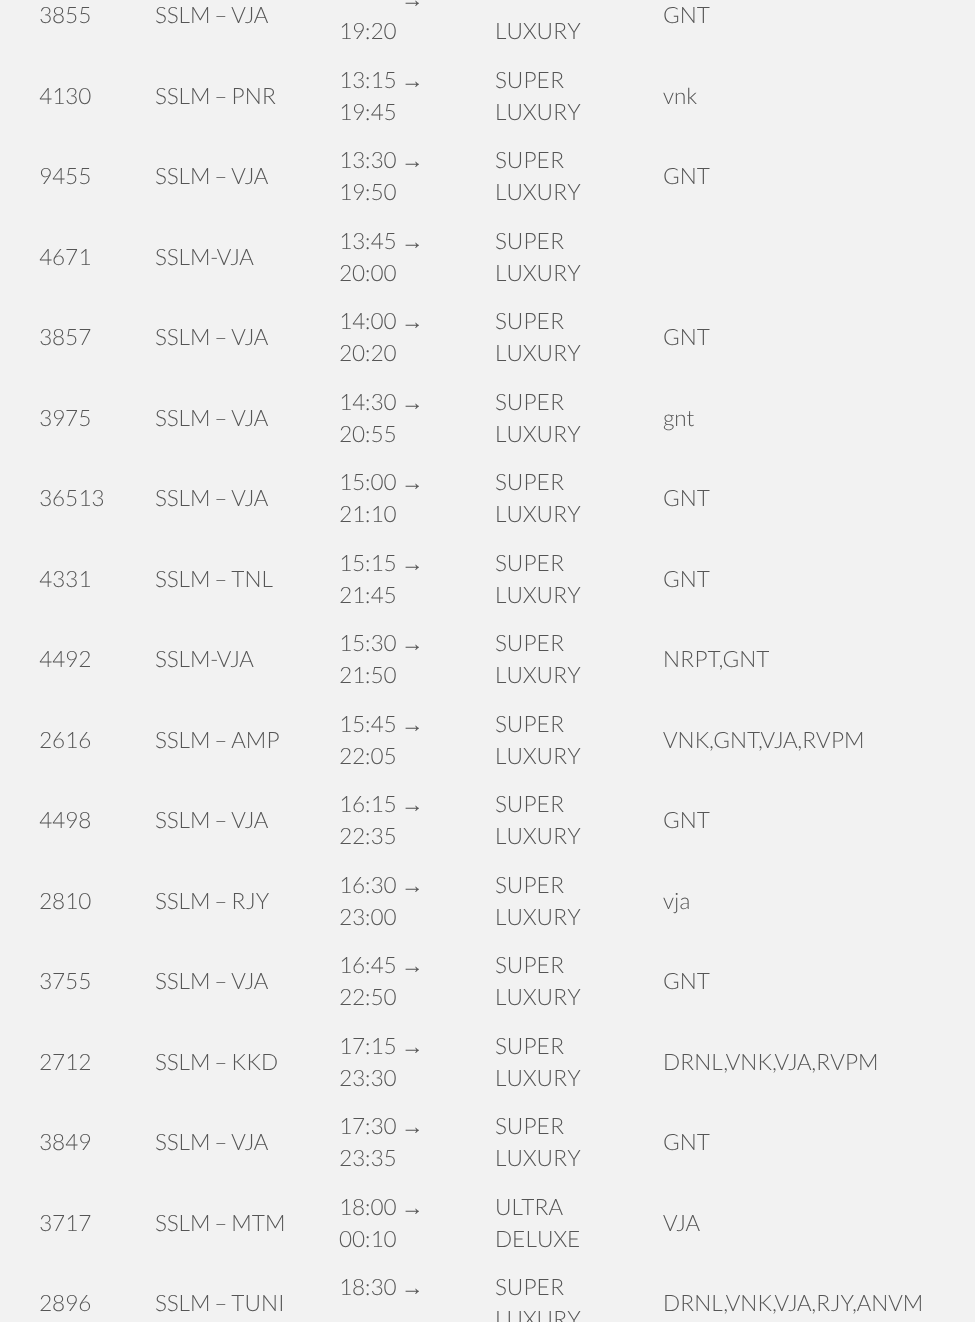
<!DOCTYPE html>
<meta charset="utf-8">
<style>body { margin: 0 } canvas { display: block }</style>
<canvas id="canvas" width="975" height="1322"></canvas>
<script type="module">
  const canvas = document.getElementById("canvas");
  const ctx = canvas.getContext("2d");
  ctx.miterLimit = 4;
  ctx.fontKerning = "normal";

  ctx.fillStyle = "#f2f2f2";
  ctx.fillRect(0, 0, 975, 1322);
  ctx.font = "300 22.5px Lato";
  ctx.fillStyle = "#555555";
  ctx.fillText("3855", 39, 23);
  ctx.fillText("SSLM – VJA", 155, 23);
  ctx.font = "22.5px Liberation Sans";
  ctx.fillText("→", 401, 7);
  ctx.font = "300 22.5px Lato";
  ctx.fillText("19:20", 339, 39);
  ctx.fillText("GNT", 663, 23);
  ctx.fillText("LUXURY", 495, 39);
  ctx.fillText("4130", 39, 104);
  ctx.fillText("SSLM – PNR", 155, 104);
  ctx.fillText("13:15", 339, 88);
  ctx.font = "22.5px Liberation Sans";
  ctx.fillText("→", 401, 88);
  ctx.font = "300 22.5px Lato";
  ctx.fillText("19:45", 339, 120);
  ctx.fillText("SUPER", 495, 88);
  ctx.fillText("LUXURY", 495, 120);
  ctx.fillText("vnk", 663, 104);
  ctx.fillText("9455", 39, 184);
  ctx.fillText("SSLM – VJA", 155, 184);
  ctx.fillText("13:30", 339, 168);
  ctx.font = "22.5px Liberation Sans";
  ctx.fillText("→", 401, 168);
  ctx.font = "300 22.5px Lato";
  ctx.fillText("19:50", 339, 200);
  ctx.fillText("SUPER", 495, 168);
  ctx.fillText("LUXURY", 495, 200);
  ctx.fillText("GNT", 663, 184);
  ctx.fillText("4671", 39, 265);
  ctx.fillText("SSLM-VJA", 155, 265);
  ctx.fillText("13:45", 339, 249);
  ctx.font = "22.5px Liberation Sans";
  ctx.fillText("→", 401, 249);
  ctx.font = "300 22.5px Lato";
  ctx.fillText("20:00", 339, 281);
  ctx.fillText("SUPER", 495, 249);
  ctx.fillText("LUXURY", 495, 281);
  ctx.fillText("3857", 39, 345);
  ctx.fillText("SSLM – VJA", 155, 345);
  ctx.fillText("14:00", 339, 329);
  ctx.font = "22.5px Liberation Sans";
  ctx.fillText("→", 401, 329);
  ctx.font = "300 22.5px Lato";
  ctx.fillText("20:20", 339, 361);
  ctx.fillText("SUPER", 495, 329);
  ctx.fillText("LUXURY", 495, 361);
  ctx.fillText("GNT", 663, 345);
  ctx.fillText("3975", 39, 426);
  ctx.fillText("SSLM – VJA", 155, 426);
  ctx.fillText("14:30", 339, 410);
  ctx.font = "22.5px Liberation Sans";
  ctx.fillText("→", 401, 410);
  ctx.font = "300 22.5px Lato";
  ctx.fillText("20:55", 339, 442);
  ctx.fillText("SUPER", 495, 410);
  ctx.fillText("LUXURY", 495, 442);
  ctx.fillText("gnt", 663, 426);
  ctx.fillText("36513", 39, 506);
  ctx.fillText("SSLM – VJA", 155, 506);
  ctx.fillText("15:00", 339, 490);
  ctx.font = "22.5px Liberation Sans";
  ctx.fillText("→", 401, 490);
  ctx.font = "300 22.5px Lato";
  ctx.fillText("21:10", 339, 522);
  ctx.fillText("SUPER", 495, 490);
  ctx.fillText("LUXURY", 495, 522);
  ctx.fillText("GNT", 663, 506);
  ctx.fillText("4331", 39, 587);
  ctx.fillText("SSLM – TNL", 155, 587);
  ctx.fillText("15:15", 339, 571);
  ctx.font = "22.5px Liberation Sans";
  ctx.fillText("→", 401, 571);
  ctx.font = "300 22.5px Lato";
  ctx.fillText("21:45", 339, 603);
  ctx.fillText("SUPER", 495, 571);
  ctx.fillText("LUXURY", 495, 603);
  ctx.fillText("GNT", 663, 587);
  ctx.fillText("4492", 39, 667);
  ctx.fillText("SSLM-VJA", 155, 667);
  ctx.fillText("15:30", 339, 651);
  ctx.font = "22.5px Liberation Sans";
  ctx.fillText("→", 401, 651);
  ctx.font = "300 22.5px Lato";
  ctx.fillText("21:50", 339, 683);
  ctx.fillText("SUPER", 495, 651);
  ctx.fillText("LUXURY", 495, 683);
  ctx.fillText("NRPT,GNT", 663, 667);
  ctx.fillText("2616", 39, 748);
  ctx.fillText("SSLM – AMP", 155, 748);
  ctx.fillText("15:45", 339, 732);
  ctx.font = "22.5px Liberation Sans";
  ctx.fillText("→", 401, 732);
  ctx.font = "300 22.5px Lato";
  ctx.fillText("22:05", 339, 764);
  ctx.fillText("SUPER", 495, 732);
  ctx.fillText("LUXURY", 495, 764);
  ctx.fillText("VNK,GNT,VJA,RVPM", 663, 748);
  ctx.fillText("4498", 39, 828);
  ctx.fillText("SSLM – VJA", 155, 828);
  ctx.fillText("16:15", 339, 812);
  ctx.font = "22.5px Liberation Sans";
  ctx.fillText("→", 401, 812);
  ctx.font = "300 22.5px Lato";
  ctx.fillText("22:35", 339, 844);
  ctx.fillText("SUPER", 495, 812);
  ctx.fillText("LUXURY", 495, 844);
  ctx.fillText("GNT", 663, 828);
  ctx.fillText("2810", 39, 909);
  ctx.fillText("SSLM – RJY", 155, 909);
  ctx.fillText("16:30", 339, 893);
  ctx.font = "22.5px Liberation Sans";
  ctx.fillText("→", 401, 893);
  ctx.font = "300 22.5px Lato";
  ctx.fillText("23:00", 339, 925);
  ctx.fillText("SUPER", 495, 893);
  ctx.fillText("LUXURY", 495, 925);
  ctx.fillText("vja", 663, 909);
  ctx.fillText("3755", 39, 989);
  ctx.fillText("SSLM – VJA", 155, 989);
  ctx.fillText("16:45", 339, 973);
  ctx.font = "22.5px Liberation Sans";
  ctx.fillText("→", 401, 973);
  ctx.font = "300 22.5px Lato";
  ctx.fillText("22:50", 339, 1005);
  ctx.fillText("SUPER", 495, 973);
  ctx.fillText("LUXURY", 495, 1005);
  ctx.fillText("GNT", 663, 989);
  ctx.fillText("2712", 39, 1070);
  ctx.fillText("SSLM – KKD", 155, 1070);
  ctx.fillText("17:15", 339, 1054);
  ctx.font = "22.5px Liberation Sans";
  ctx.fillText("→", 401, 1054);
  ctx.font = "300 22.5px Lato";
  ctx.fillText("23:30", 339, 1086);
  ctx.fillText("SUPER", 495, 1054);
  ctx.fillText("LUXURY", 495, 1086);
  ctx.fillText("DRNL,VNK,VJA,RVPM", 663, 1070);
  ctx.fillText("3849", 39, 1150);
  ctx.fillText("SSLM – VJA", 155, 1150);
  ctx.fillText("17:30", 339, 1134);
  ctx.font = "22.5px Liberation Sans";
  ctx.fillText("→", 401, 1134);
  ctx.font = "300 22.5px Lato";
  ctx.fillText("23:35", 339, 1166);
  ctx.fillText("SUPER", 495, 1134);
  ctx.fillText("LUXURY", 495, 1166);
  ctx.fillText("GNT", 663, 1150);
  ctx.fillText("3717", 39, 1231);
  ctx.fillText("SSLM – MTM", 155, 1231);
  ctx.fillText("18:00", 339, 1215);
  ctx.font = "22.5px Liberation Sans";
  ctx.fillText("→", 401, 1215);
  ctx.font = "300 22.5px Lato";
  ctx.fillText("00:10", 339, 1247);
  ctx.fillText("ULTRA", 495, 1215);
  ctx.fillText("DELUXE", 495, 1247);
  ctx.fillText("VJA", 663, 1231);
  ctx.fillText("2896", 39, 1311);
  ctx.fillText("SSLM – TUNI", 155, 1311);
  ctx.fillText("18:30", 339, 1295);
  ctx.font = "22.5px Liberation Sans";
  ctx.fillText("→", 401, 1295);
  ctx.font = "300 22.5px Lato";
  ctx.fillText("SUPER", 495, 1295);
  ctx.fillText("LUXURY", 495, 1327);
  ctx.fillText("DRNL,VNK,VJA,RJY,ANVM", 663, 1311);
</script>
